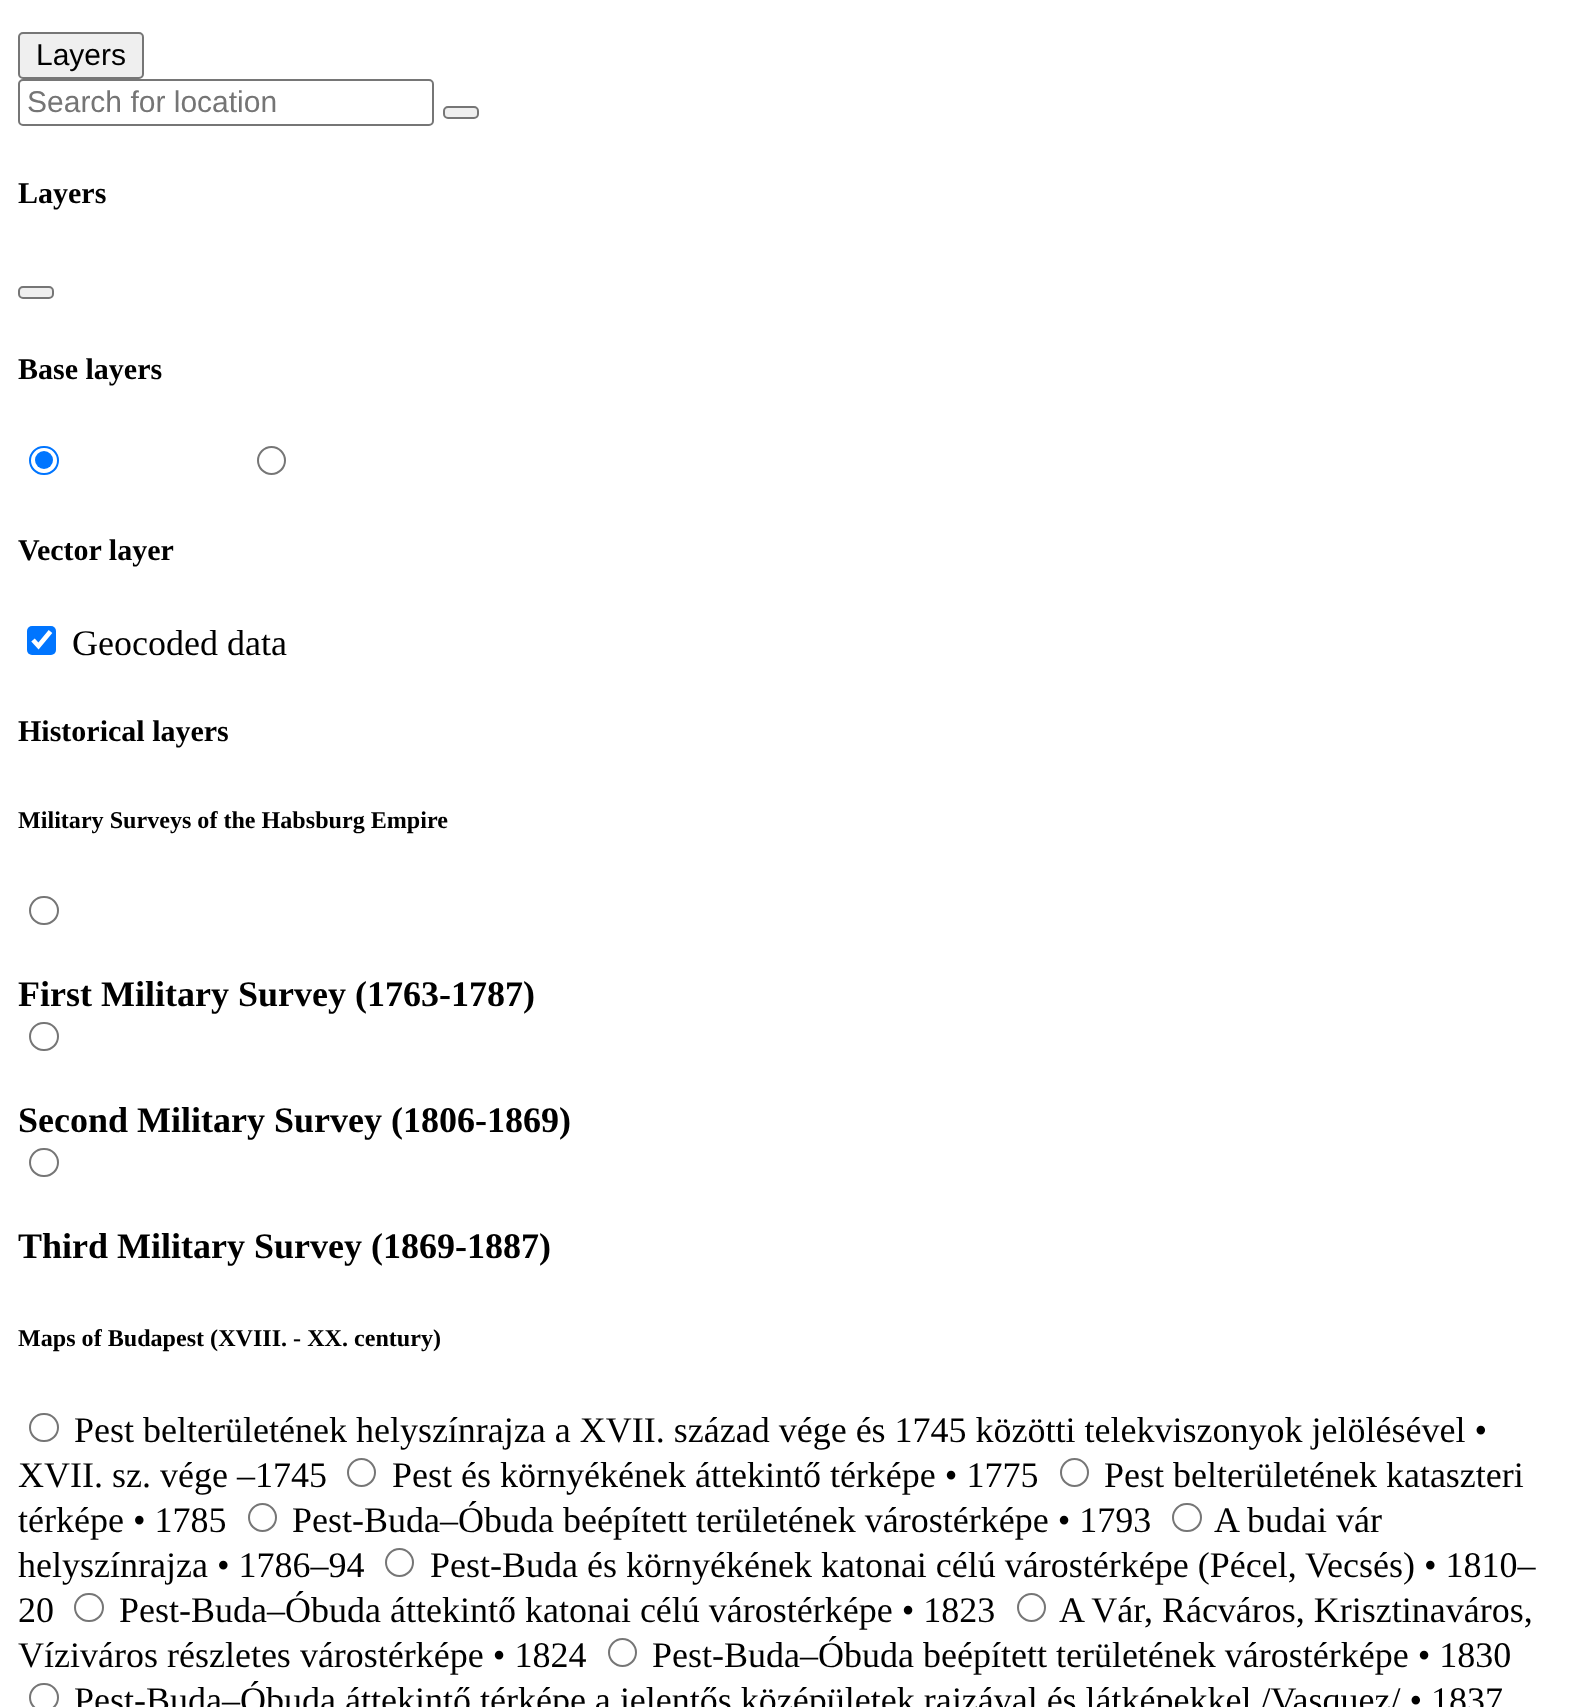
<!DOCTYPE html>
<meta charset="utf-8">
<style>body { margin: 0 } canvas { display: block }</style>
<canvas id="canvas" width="1575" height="1707"></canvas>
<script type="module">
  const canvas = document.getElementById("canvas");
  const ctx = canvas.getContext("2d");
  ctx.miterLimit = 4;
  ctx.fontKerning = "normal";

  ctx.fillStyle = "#ffffff";
  ctx.fillRect(0, 0, 1575, 1707);
  ctx.fillStyle = "#efefef";
  ctx.beginPath();
  ctx.roundRect(19, 33, 124, 45, 4);
  ctx.fill();
  ctx.strokeStyle = "#767676";
  ctx.lineWidth = 2;
  ctx.stroke();
  ctx.font = "30px Liberation Sans";
  ctx.fillStyle = "#000000";
  ctx.fillText("Layers", 36, 65);
  ctx.beginPath();
  ctx.roundRect(19, 80, 414, 45, 4);
  ctx.stroke();
  ctx.fillStyle = "#757575";
  ctx.fillText("Search for location", 27, 112);
  ctx.fillStyle = "#efefef";
  ctx.beginPath();
  ctx.roundRect(444, 107, 34, 11, 4);
  ctx.fill();
  ctx.stroke();
  ctx.font = "bold 30px Liberation Serif";
  ctx.fillStyle = "#000000";
  ctx.fillText("Layers", 18, 203);
  ctx.fillStyle = "#efefef";
  ctx.beginPath();
  ctx.roundRect(19, 287, 34, 11, 4);
  ctx.fill();
  ctx.stroke();
  ctx.fillStyle = "#000000";
  ctx.fillText("Base layers", 18, 379);
  ctx.beginPath();
  ctx.roundRect(30, 447, 28, 27, 13.5);
  ctx.strokeStyle = "#0075ff";
  ctx.stroke();
  ctx.fillStyle = "#0075ff";
  ctx.beginPath();
  ctx.arc(44, 460, 9, 0, Math.PI * 2);
  ctx.fill();
  ctx.beginPath();
  ctx.arc(271.5, 460.5, 13.5, 0, Math.PI * 2);
  ctx.strokeStyle = "#767676";
  ctx.stroke();
  ctx.fillStyle = "#000000";
  ctx.fillText("Vector layer", 18, 560);
  ctx.fillStyle = "#0075ff";
  ctx.beginPath();
  ctx.roundRect(27, 626, 29, 29, 5);
  ctx.fill();
  ctx.beginPath();
  ctx.moveTo(33, 640);
  ctx.lineTo(38.5, 646);
  ctx.lineTo(50.5, 631.5);
  ctx.strokeStyle = "#ffffff";
  ctx.lineWidth = 4.7;
  ctx.stroke();
  ctx.font = "36px Liberation Serif";
  ctx.fillStyle = "#000000";
  ctx.fillText("Geocoded data", 72, 655);
  ctx.font = "bold 30px Liberation Serif";
  ctx.fillText("Historical layers", 18, 741);
  ctx.font = "bold 24.1px Liberation Serif";
  ctx.fillText("Military Surveys of the Habsburg Empire", 18, 828);
  ctx.beginPath();
  ctx.roundRect(30, 897, 28, 27, 13.5);
  ctx.strokeStyle = "#767676";
  ctx.lineWidth = 2;
  ctx.stroke();
  ctx.font = "bold 36px Liberation Serif";
  ctx.fillText("First Military Survey (1763-1787)", 18, 1006);
  ctx.beginPath();
  ctx.roundRect(30, 1023, 28, 27, 13.5);
  ctx.stroke();
  ctx.fillText("Second Military Survey (1806-1869)", 18, 1132);
  ctx.beginPath();
  ctx.roundRect(30, 1149, 28, 27, 13.5);
  ctx.stroke();
  ctx.fillText("Third Military Survey (1869-1887)", 18, 1258);
  ctx.font = "bold 24.1px Liberation Serif";
  ctx.fillText("Maps of Budapest (XVIII. - XX. century)", 18, 1346);
  ctx.beginPath();
  ctx.roundRect(30, 1414, 28, 27, 13.5);
  ctx.stroke();
  ctx.font = "36px Liberation Serif";
  ctx.fillText("Pest belterületének helyszínrajza a XVII. század vége és 1745 közötti telekviszonyok jelölésével •", 74, 1442);
  ctx.fillText("XVII. sz. vége –1745", 18, 1487);
  ctx.beginPath();
  ctx.arc(361.5, 1472.5, 13.5, 0, Math.PI * 2);
  ctx.stroke();
  ctx.fillText("Pest és környékének áttekintő térképe • 1775", 392, 1487);
  ctx.beginPath();
  ctx.arc(1074.5, 1472.5, 13.5, 0, Math.PI * 2);
  ctx.stroke();
  ctx.fillText("Pest belterületének kataszteri", 1104, 1487);
  ctx.fillText("térképe • 1785", 18, 1532);
  ctx.beginPath();
  ctx.arc(262.5, 1517.5, 13.5, 0, Math.PI * 2);
  ctx.stroke();
  ctx.fillText("Pest-Buda–Óbuda beépített területének várostérképe • 1793", 292, 1532);
  ctx.beginPath();
  ctx.roundRect(1173, 1504, 28, 27, 13.5);
  ctx.stroke();
  ctx.fillText("A budai vár", 1214, 1532);
  ctx.fillText("helyszínrajza • 1786–94", 18, 1577);
  ctx.beginPath();
  ctx.arc(399.5, 1562.5, 13.5, 0, Math.PI * 2);
  ctx.stroke();
  ctx.fillText("Pest-Buda és környékének katonai célú várostérképe (Pécel, Vecsés) • 1810–", 430, 1577);
  ctx.fillText("20", 18, 1622);
  ctx.beginPath();
  ctx.roundRect(75, 1594, 28, 27, 13.5);
  ctx.stroke();
  ctx.fillText("Pest-Buda–Óbuda áttekintő katonai célú várostérképe • 1823", 119, 1622);
  ctx.beginPath();
  ctx.arc(1031.5, 1607.5, 13.5, 0, Math.PI * 2);
  ctx.stroke();
  ctx.fillText("A Vár, Rácváros, Krisztinaváros,", 1059, 1622);
  ctx.fillText("Víziváros részletes várostérképe • 1824", 18, 1667);
  ctx.beginPath();
  ctx.arc(622.5, 1652.5, 13.5, 0, Math.PI * 2);
  ctx.stroke();
  ctx.fillText("Pest-Buda–Óbuda beépített területének várostérképe • 1830", 652, 1667);
  ctx.beginPath();
  ctx.roundRect(30, 1684, 28, 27, 13.5);
  ctx.stroke();
  ctx.fillText("Pest-Buda–Óbuda áttekintő térképe a jelentős középületek rajzával és látképekkel /Vasquez/ • 1837", 74, 1712);
</script>
